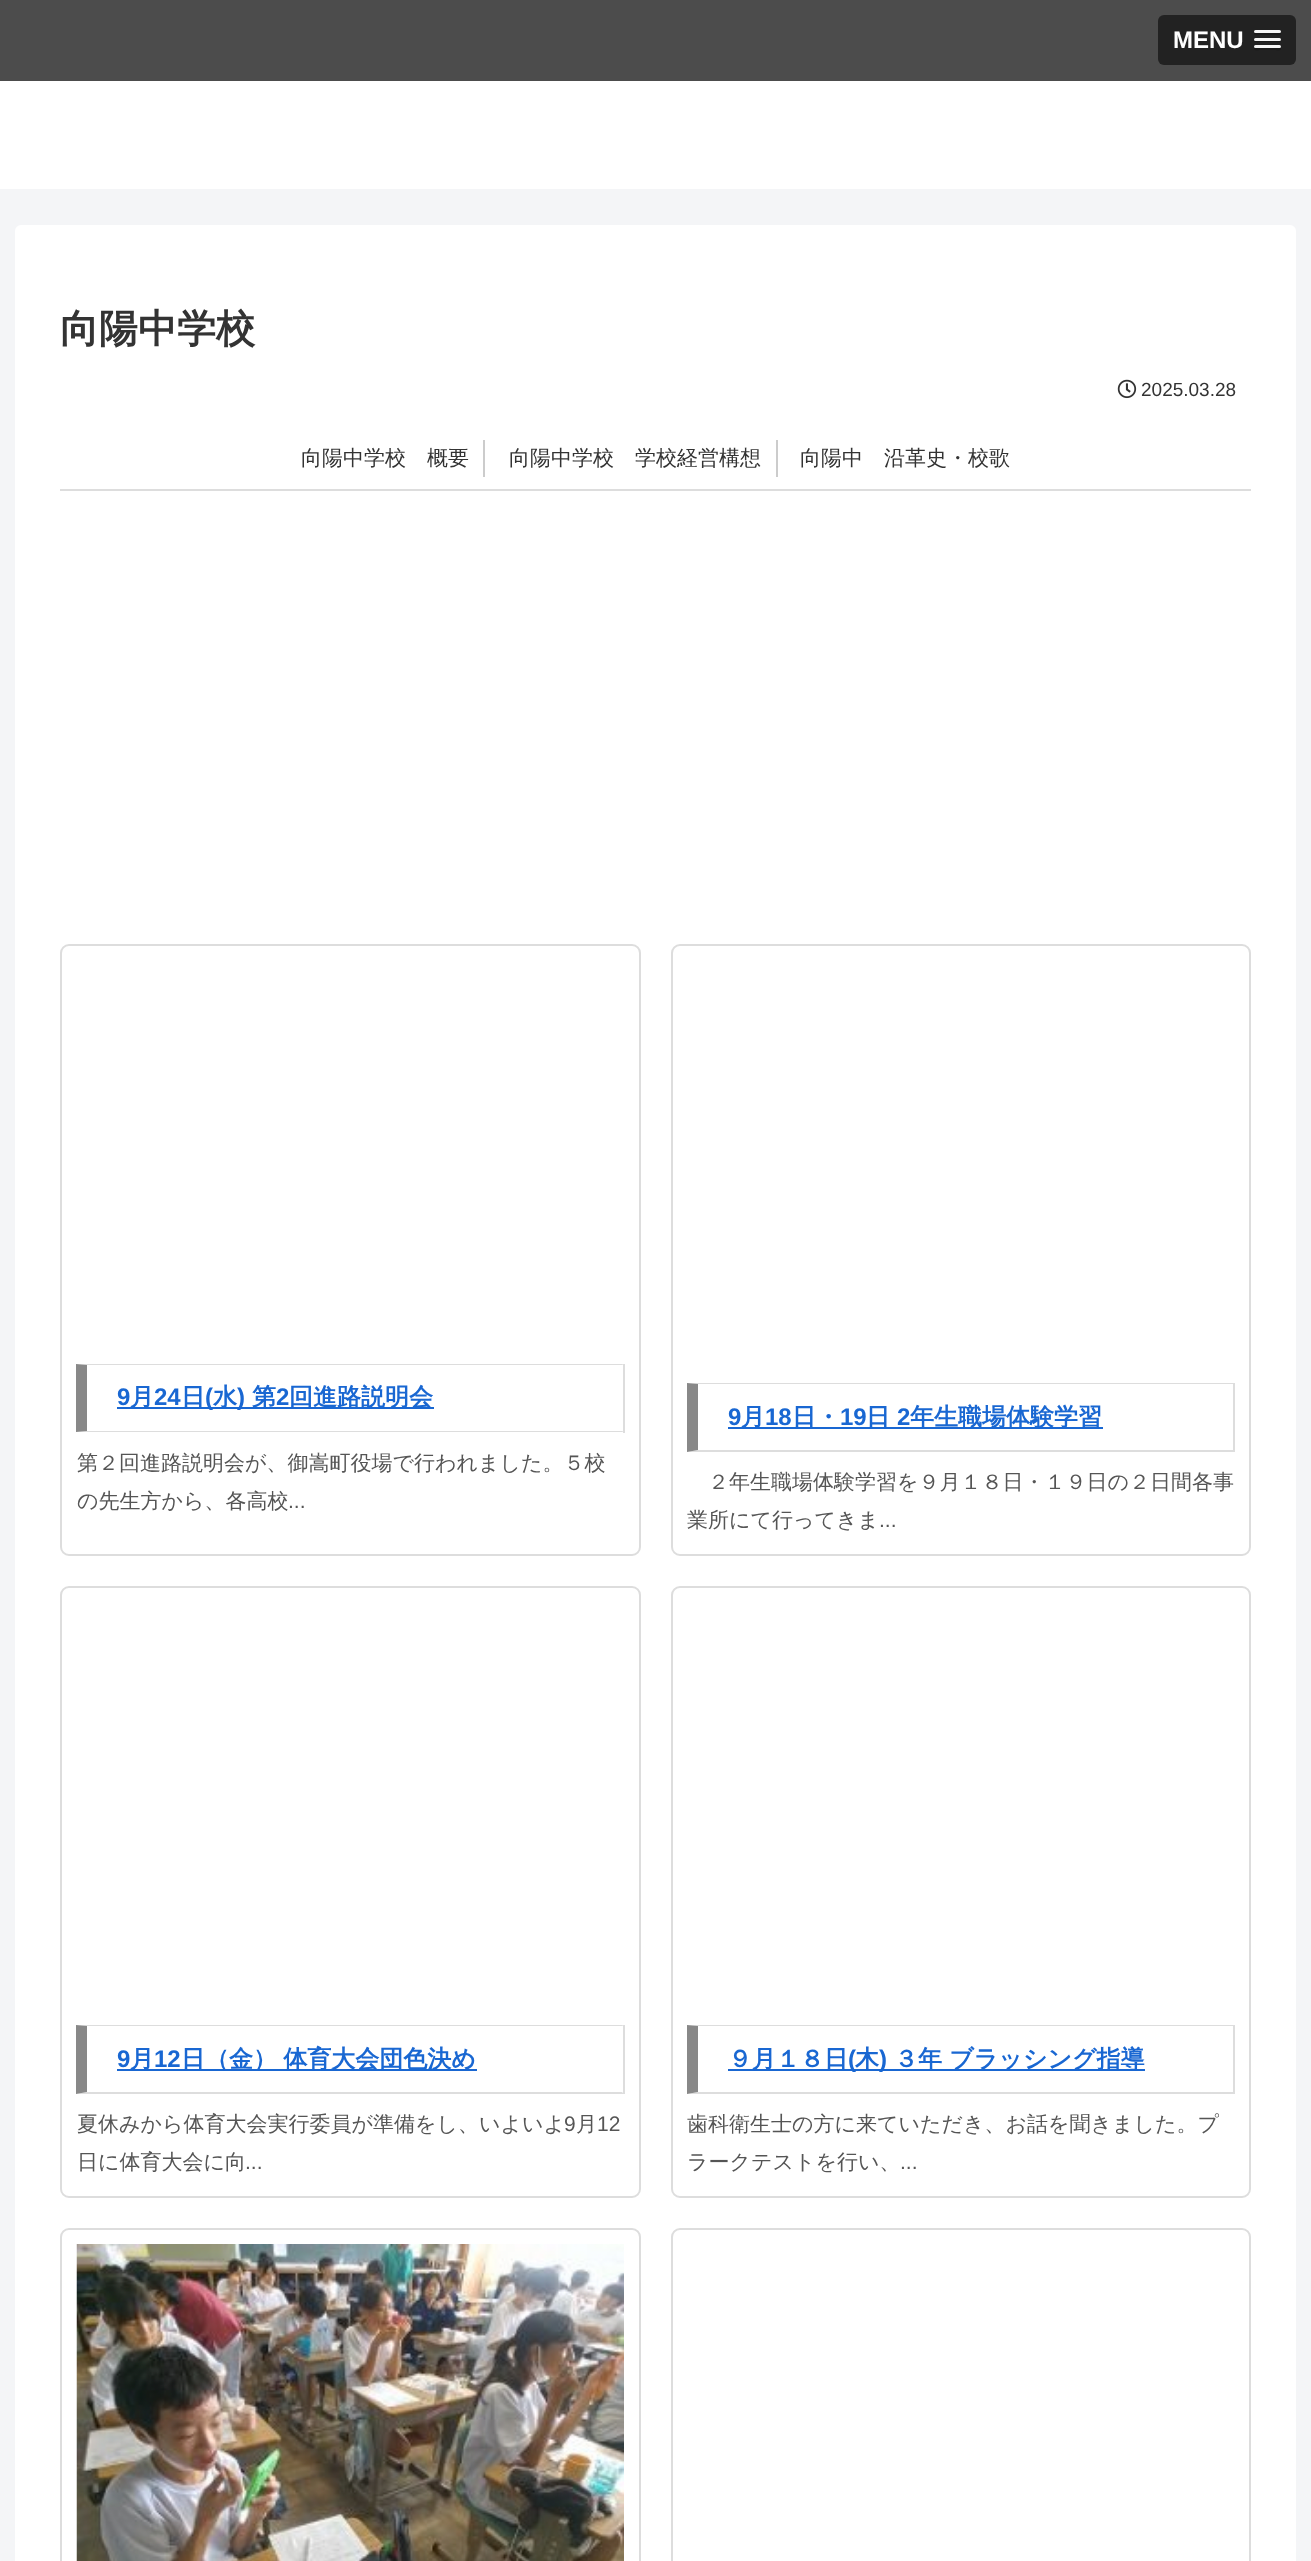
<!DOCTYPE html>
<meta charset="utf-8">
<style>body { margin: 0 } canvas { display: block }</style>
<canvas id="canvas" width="1311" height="2561"></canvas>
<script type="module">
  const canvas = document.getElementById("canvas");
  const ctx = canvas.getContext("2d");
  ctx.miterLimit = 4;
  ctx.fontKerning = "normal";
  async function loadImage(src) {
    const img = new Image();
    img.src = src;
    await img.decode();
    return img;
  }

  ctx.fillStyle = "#f4f5f7";
  ctx.fillRect(0, 0, 1311, 2561);
  ctx.fillStyle = "#4c4c4c";
  ctx.fillRect(0, 0, 1311, 81);
  ctx.fillStyle = "#222222";
  ctx.beginPath();
  ctx.roundRect(1158, 15, 138, 50, 6);
  ctx.fill();
  ctx.font = "bold 24px Liberation Sans";
  ctx.fillStyle = "#ffffff";
  ctx.fillText("MENU", 1173, 48);
  ctx.fillStyle = "#1a1a1a";
  ctx.beginPath();
  ctx.moveTo(1254.5, 32.5);
  ctx.lineTo(1254, 34);
  ctx.bezierCurveTo(1254.5, 36, 1259, 35, 1259.5, 35);
  ctx.lineTo(1275.5, 35);
  ctx.bezierCurveTo(1276, 35, 1280.5, 36, 1281, 34);
  ctx.lineTo(1280.5, 32.5);
  ctx.lineTo(1279.5, 33);
  ctx.lineTo(1255.5, 33);
  ctx.closePath();
  ctx.fill();
  ctx.fillStyle = "#f5f5f5";
  ctx.beginPath();
  ctx.roundRect(1254, 30, 27, 3, 1.5);
  ctx.fill();
  ctx.fillStyle = "#1a1a1a";
  ctx.beginPath();
  ctx.moveTo(1254, 39.5);
  ctx.bezierCurveTo(1252.5, 43, 1259.5, 42, 1259.5, 42);
  ctx.lineTo(1275.5, 42);
  ctx.bezierCurveTo(1275.5, 42, 1282.5, 43, 1281, 39.5);
  ctx.bezierCurveTo(1280.5, 40, 1280, 40.5, 1279.5, 40.5);
  ctx.lineTo(1255.5, 40.5);
  ctx.bezierCurveTo(1255, 40.5, 1254.5, 40, 1254, 39.5);
  ctx.closePath();
  ctx.fill();
  ctx.fillStyle = "#f5f5f5";
  ctx.beginPath();
  ctx.roundRect(1254, 38, 27, 3, 1.5);
  ctx.fill();
  ctx.fillStyle = "#1a1a1a";
  ctx.beginPath();
  ctx.moveTo(1254.5, 47.5);
  ctx.lineTo(1254, 49);
  ctx.bezierCurveTo(1254.5, 51, 1259, 50, 1259.5, 50);
  ctx.lineTo(1275.5, 50);
  ctx.bezierCurveTo(1276, 50, 1280.5, 51, 1281, 49);
  ctx.lineTo(1280.5, 47.5);
  ctx.lineTo(1279.5, 48);
  ctx.lineTo(1255.5, 48);
  ctx.closePath();
  ctx.fill();
  ctx.fillStyle = "#f5f5f5";
  ctx.beginPath();
  ctx.roundRect(1254, 45, 27, 3, 1.5);
  ctx.fill();
  ctx.fillStyle = "#ffffff";
  ctx.fillRect(0, 81, 1311, 108);
  ctx.beginPath();
  ctx.roundRect(15, 225, 1281, 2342, 6);
  ctx.fill();
  ctx.font = "bold 39px WenQuanYi Zen Hei";
  ctx.fillStyle = "#333333";
  ctx.fillText("向陽中学校", 60, 342);
  ctx.drawImage(await loadImage("img1.png"), 1117, 379, 20, 20);
  ctx.font = "19px Liberation Sans";
  ctx.fillText("2025.03.28", 1141, 396);
  ctx.fillStyle = "#dddddd";
  ctx.fillRect(60, 489, 1191, 2);
  ctx.fillStyle = "#cccccc";
  ctx.fillRect(483, 440, 2, 37);
  ctx.font = "500 21px WenQuanYi Zen Hei";
  ctx.fillStyle = "#333333";
  ctx.fillText("向陽中学校　概要", 301, 465);
  ctx.fillStyle = "#cccccc";
  ctx.fillRect(776, 440, 2, 37);
  ctx.fillStyle = "#333333";
  ctx.fillText("向陽中学校　学校経営構想", 509, 465);
  ctx.fillText("向陽中　沿革史・校歌", 800, 465);
  ctx.beginPath();
  ctx.roundRect(61, 945, 579, 610, 8);
  ctx.strokeStyle = "#dddddd";
  ctx.lineWidth = 2;
  ctx.stroke();
  ctx.fillStyle = "#dddddd";
  ctx.beginPath();
  ctx.moveTo(76, 1364);
  ctx.lineTo(624, 1364);
  ctx.lineTo(622, 1365);
  ctx.lineTo(87, 1365);
  ctx.closePath();
  ctx.fill();
  ctx.fillRect(623, 1364, 2, 69);
  ctx.beginPath();
  ctx.moveTo(624, 1432);
  ctx.lineTo(76, 1432);
  ctx.lineTo(87, 1431);
  ctx.lineTo(622, 1431);
  ctx.closePath();
  ctx.fill();
  ctx.fillStyle = "#888888";
  ctx.beginPath();
  ctx.moveTo(76, 1432);
  ctx.lineTo(76, 1364);
  ctx.lineTo(87, 1365);
  ctx.lineTo(87, 1431);
  ctx.closePath();
  ctx.fill();
  ctx.font = "bold 24px Liberation Sans";
  ctx.fillStyle = "#1967d2";
  ctx.fillText("9", 117, 1405);
  ctx.fillRect(117, 1407, 317, 2);
  ctx.font = "bold 24px WenQuanYi Zen Hei";
  ctx.fillText("月", 130, 1405);
  ctx.font = "bold 24px Liberation Sans";
  ctx.fillText("24", 154, 1405);
  ctx.font = "bold 24px WenQuanYi Zen Hei";
  ctx.fillText("日", 181, 1405);
  ctx.font = "bold 24px Liberation Sans";
  ctx.fillText("(", 205, 1405);
  ctx.font = "bold 24px WenQuanYi Zen Hei";
  ctx.fillText("水", 213, 1405);
  ctx.font = "bold 24px Liberation Sans";
  ctx.fillText(")", 237, 1405);
  ctx.font = "bold 24px WenQuanYi Zen Hei";
  ctx.fillText("第", 252, 1405);
  ctx.font = "bold 24px Liberation Sans";
  ctx.fillText("2", 276, 1405);
  ctx.font = "bold 24px WenQuanYi Zen Hei";
  ctx.fillText("回進路説明会", 289, 1405);
  ctx.font = "500 21px WenQuanYi Zen Hei";
  ctx.fillStyle = "#555555";
  ctx.fillText("第２回進路説明会が、御嵩町役場で行われました。５校", 77, 1470);
  ctx.fillText("の先生方から、各高校", 77, 1508);
  ctx.font = "21px Liberation Sans";
  ctx.fillText("...", 288, 1508);
  ctx.beginPath();
  ctx.roundRect(672, 945, 578, 610, 8);
  ctx.stroke();
  ctx.fillStyle = "#dddddd";
  ctx.beginPath();
  ctx.moveTo(687, 1383);
  ctx.lineTo(1234, 1383);
  ctx.lineTo(1233, 1384);
  ctx.lineTo(698, 1384);
  ctx.closePath();
  ctx.fill();
  ctx.fillRect(1233, 1383, 2, 69);
  ctx.beginPath();
  ctx.moveTo(1234, 1452);
  ctx.lineTo(687, 1452);
  ctx.lineTo(698, 1450);
  ctx.lineTo(1233, 1450);
  ctx.closePath();
  ctx.fill();
  ctx.fillStyle = "#888888";
  ctx.beginPath();
  ctx.moveTo(687, 1452);
  ctx.lineTo(687, 1383);
  ctx.lineTo(698, 1384);
  ctx.lineTo(698, 1450);
  ctx.closePath();
  ctx.fill();
  ctx.font = "bold 24px Liberation Sans";
  ctx.fillStyle = "#1967d2";
  ctx.fillText("9", 728, 1425);
  ctx.fillRect(728, 1427, 375, 2);
  ctx.font = "bold 24px WenQuanYi Zen Hei";
  ctx.fillText("月", 741, 1425);
  ctx.font = "bold 24px Liberation Sans";
  ctx.fillText("18", 765, 1425);
  ctx.font = "bold 24px WenQuanYi Zen Hei";
  ctx.fillText("日・", 792, 1425);
  ctx.font = "bold 24px Liberation Sans";
  ctx.fillText("19", 840, 1425);
  ctx.font = "bold 24px WenQuanYi Zen Hei";
  ctx.fillText("日", 866, 1425);
  ctx.font = "bold 24px Liberation Sans";
  ctx.fillText("2", 897, 1425);
  ctx.font = "bold 24px WenQuanYi Zen Hei";
  ctx.fillText("年生職場体験学習", 910, 1425);
  ctx.font = "500 21px WenQuanYi Zen Hei";
  ctx.fillStyle = "#555555";
  ctx.fillText("２年生職場体験学習を９月１８日・１９日の２日間各事", 708, 1489);
  ctx.fillText("業所にて行ってきま", 687, 1527);
  ctx.font = "21px Liberation Sans";
  ctx.fillText("...", 879, 1527);
  ctx.beginPath();
  ctx.roundRect(61, 1587, 579, 610, 8);
  ctx.stroke();
  ctx.fillStyle = "#dddddd";
  ctx.beginPath();
  ctx.moveTo(76, 2025);
  ctx.lineTo(624, 2025);
  ctx.lineTo(622, 2026);
  ctx.lineTo(87, 2026);
  ctx.closePath();
  ctx.fill();
  ctx.fillRect(623, 2025, 2, 69);
  ctx.beginPath();
  ctx.moveTo(624, 2094);
  ctx.lineTo(76, 2094);
  ctx.lineTo(87, 2092);
  ctx.lineTo(622, 2092);
  ctx.closePath();
  ctx.fill();
  ctx.fillStyle = "#888888";
  ctx.beginPath();
  ctx.moveTo(76, 2094);
  ctx.lineTo(76, 2025);
  ctx.lineTo(87, 2026);
  ctx.lineTo(87, 2092);
  ctx.closePath();
  ctx.fill();
  ctx.font = "bold 24px Liberation Sans";
  ctx.fillStyle = "#1967d2";
  ctx.fillText("9", 117, 2067);
  ctx.fillRect(117, 2069, 360, 2);
  ctx.font = "bold 24px WenQuanYi Zen Hei";
  ctx.fillText("月", 130, 2067);
  ctx.font = "bold 24px Liberation Sans";
  ctx.fillText("12", 154, 2067);
  ctx.wordSpacing = "-1px";
  ctx.font = "bold 24px WenQuanYi Zen Hei";
  ctx.fillText("日（金） 体育大会団色決め", 181, 2067);
  ctx.wordSpacing = "0px";
  ctx.font = "500 21px WenQuanYi Zen Hei";
  ctx.fillStyle = "#555555";
  ctx.fillText("夏休みから体育大会実行委員が準備をし、いよいよ", 77, 2131);
  ctx.font = "21px Liberation Sans";
  ctx.fillText("9", 564, 2131);
  ctx.font = "500 21px WenQuanYi Zen Hei";
  ctx.fillText("月", 576, 2131);
  ctx.font = "21px Liberation Sans";
  ctx.fillText("12", 597, 2131);
  ctx.font = "500 21px WenQuanYi Zen Hei";
  ctx.fillText("日に体育大会に向", 77, 2169);
  ctx.font = "21px Liberation Sans";
  ctx.fillText("...", 245, 2169);
  ctx.beginPath();
  ctx.roundRect(672, 1587, 578, 610, 8);
  ctx.stroke();
  ctx.fillStyle = "#dddddd";
  ctx.beginPath();
  ctx.moveTo(687, 2025);
  ctx.lineTo(1234, 2025);
  ctx.lineTo(1233, 2026);
  ctx.lineTo(698, 2026);
  ctx.closePath();
  ctx.fill();
  ctx.fillRect(1233, 2025, 2, 69);
  ctx.beginPath();
  ctx.moveTo(1234, 2094);
  ctx.lineTo(687, 2094);
  ctx.lineTo(698, 2092);
  ctx.lineTo(1233, 2092);
  ctx.closePath();
  ctx.fill();
  ctx.fillStyle = "#888888";
  ctx.beginPath();
  ctx.moveTo(687, 2094);
  ctx.lineTo(687, 2025);
  ctx.lineTo(698, 2026);
  ctx.lineTo(698, 2092);
  ctx.closePath();
  ctx.fill();
  ctx.fillStyle = "#1967d2";
  ctx.fillRect(728, 2069, 417, 2);
  ctx.font = "bold 24px WenQuanYi Zen Hei";
  ctx.fillText("９月１８日", 728, 2067);
  ctx.font = "bold 24px Liberation Sans";
  ctx.fillText("(", 848, 2067);
  ctx.font = "bold 24px WenQuanYi Zen Hei";
  ctx.fillText("木", 855, 2067);
  ctx.font = "bold 24px Liberation Sans";
  ctx.fillText(")", 879, 2067);
  ctx.font = "bold 24px WenQuanYi Zen Hei";
  ctx.fillText("３年 ブラッシング指導", 894, 2067);
  ctx.font = "500 21px WenQuanYi Zen Hei";
  ctx.fillStyle = "#555555";
  ctx.fillText("歯科衛生士の方に来ていただき、お話を聞きました。プ", 687, 2131);
  ctx.fillText("ラークテストを行い、", 687, 2169);
  ctx.font = "21px Liberation Sans";
  ctx.fillText("...", 900, 2169);
  ctx.beginPath();
  ctx.roundRect(61, 2229, 579, 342, 8);
  ctx.stroke();
  ctx.drawImage(await loadImage("img2.png"), 76, 2244, 548, 317);
  ctx.beginPath();
  ctx.roundRect(672, 2229, 578, 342, 8);
  ctx.stroke();
</script>
